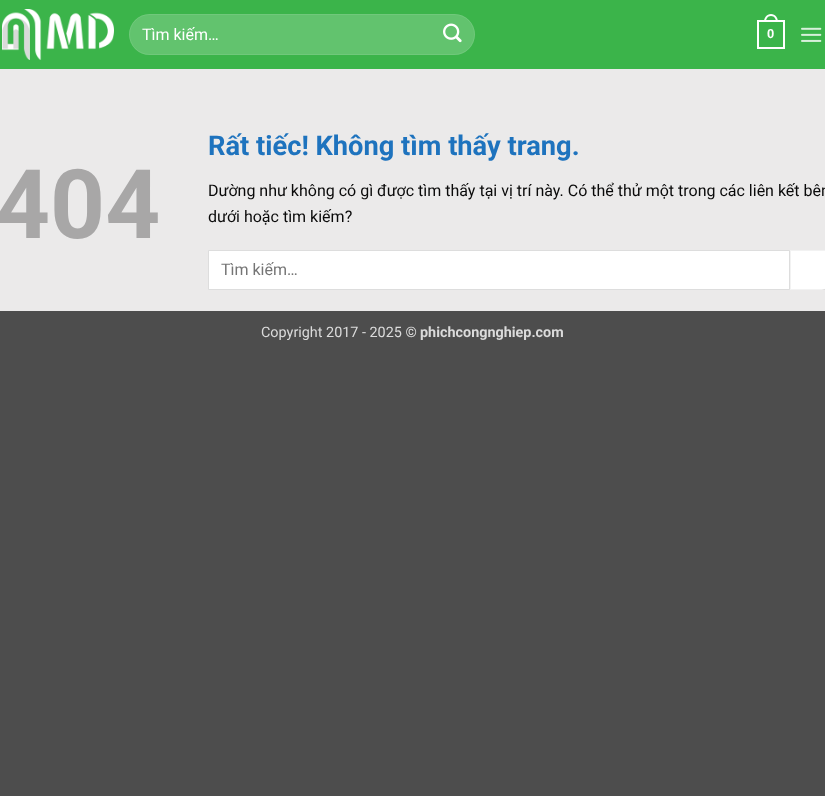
<!DOCTYPE html>
<meta charset="utf-8">
<style>body { margin: 0 } canvas { display: block }</style>
<canvas id="canvas" width="825" height="796"></canvas>
<script type="module">
  const canvas = document.getElementById("canvas");
  const ctx = canvas.getContext("2d");
  ctx.miterLimit = 4;
  ctx.fontKerning = "normal";
  async function loadImage(src) {
    const img = new Image();
    img.src = src;
    await img.decode();
    return img;
  }

  ctx.fillStyle = "#4d4d4d";
  ctx.fillRect(0, 0, 825, 796);
  ctx.fillStyle = "#ebeaea";
  ctx.fillRect(0, 69, 825, 242);
  ctx.fillStyle = "#3bb44a";
  ctx.fillRect(0, 0, 825, 69);
  ctx.drawImage(await loadImage("img1.png"), 2, 9, 112, 51);
  ctx.fillStyle = "#62c36e";
  ctx.beginPath();
  ctx.roundRect(129, 14, 346, 41, 20.5);
  ctx.fill();
  ctx.beginPath();
  ctx.roundRect(129.5, 14.5, 345, 40, 20);
  ctx.strokeStyle = "rgba(255, 255, 255, 0.09)";
  ctx.stroke();
  ctx.font = "16px Roboto";
  ctx.fillStyle = "#ffffff";
  ctx.fillText("Tìm kiếm…", 142, 40);
  ctx.drawImage(await loadImage("img2.png"), 443, 23, 19, 20);
  ctx.strokeStyle = "#ffffff";
  ctx.lineWidth = 2;
  ctx.strokeRect(758, 21, 26, 27);
  ctx.beginPath();
  ctx.moveTo(771, 14);
  ctx.bezierCurveTo(775.5, 14, 778, 18, 778, 22);
  ctx.lineTo(764, 22);
  ctx.bezierCurveTo(764, 18, 766.5, 14, 771, 14);
  ctx.closePath();
  ctx.moveTo(771, 16);
  ctx.bezierCurveTo(774.5, 16, 776, 19, 776, 22);
  ctx.lineTo(766, 22);
  ctx.bezierCurveTo(766, 19, 767.5, 16, 771, 16);
  ctx.closePath();
  ctx.fill("evenodd");
  ctx.font = "bold 13px Liberation Sans";
  ctx.fillText("0", 767, 38);
  ctx.drawImage(await loadImage("img3.png"), 801, 27, 21, 15);
  ctx.font = "bold 96px Roboto";
  ctx.fillStyle = "#a8a7a7";
  ctx.fillText("404", -5, 238);
  ctx.font = "bold 27.25px Roboto";
  ctx.fillStyle = "#1e73be";
  ctx.fillText("Rất tiếc! Không tìm thấy trang.", 208, 155);
  ctx.font = "16px Roboto";
  ctx.fillStyle = "#0a0a0a";
  ctx.fillText("Dường như không có gì được tìm thấy tại vị trí này. Có thể thử một trong các liên kết bên", 208, 196);
  ctx.fillText("dưới hoặc tìm kiếm?", 208, 222);
  ctx.fillStyle = "#ffffff";
  ctx.beginPath();
  ctx.rect(208.5, 250.5, 581, 39);
  ctx.fill();
  ctx.strokeStyle = "#dddddd";
  ctx.lineWidth = 1;
  ctx.stroke();
  ctx.fillStyle = "#757575";
  ctx.fillText("Tìm kiếm…", 221, 275);
  ctx.fillStyle = "#ffffff";
  ctx.beginPath();
  ctx.moveTo(790, 250);
  ctx.lineTo(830, 250);
  ctx.lineTo(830, 280);
  ctx.bezierCurveTo(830, 285.5, 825.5, 290, 820, 290);
  ctx.lineTo(790, 290);
  ctx.closePath();
  ctx.fill();
  ctx.strokeStyle = "rgba(0, 0, 0, 0.05)";
  ctx.strokeRect(790.5, 250.5, 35, 39);
  ctx.font = "14.4px Roboto";
  ctx.fillStyle = "#dbdbdb";
  ctx.fillText("Copyright 2017 - 2025 ©", 261, 337);
  ctx.font = "bold 14.4px Roboto";
  ctx.fillText("phichcongnghiep.com", 420, 337);
</script>
